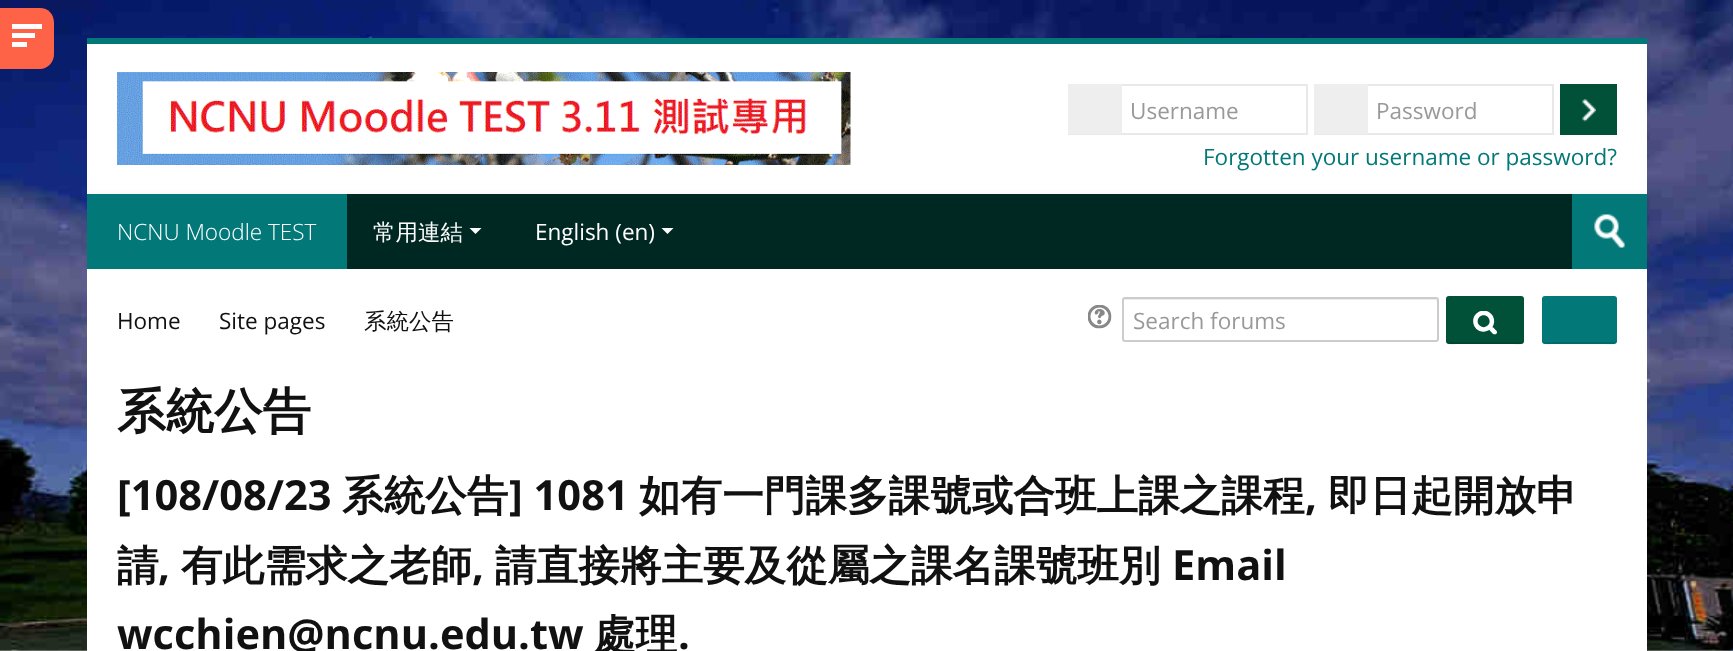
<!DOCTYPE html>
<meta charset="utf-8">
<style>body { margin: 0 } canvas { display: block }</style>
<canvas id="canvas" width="1733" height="651"></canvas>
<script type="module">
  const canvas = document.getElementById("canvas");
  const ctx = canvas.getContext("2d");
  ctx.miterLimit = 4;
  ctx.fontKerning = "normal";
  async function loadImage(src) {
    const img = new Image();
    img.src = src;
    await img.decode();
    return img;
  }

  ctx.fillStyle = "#ffffff";
  ctx.fillRect(0, 0, 1733, 651);
  ctx.drawImage(await loadImage("img1.png"), 0, 0, 1733, 651);
  ctx.fillStyle = "#ff6347";
  ctx.beginPath();
  ctx.moveTo(0, 8);
  ctx.lineTo(40, 8);
  ctx.bezierCurveTo(48, 8, 54, 14, 54, 23);
  ctx.lineTo(54, 54);
  ctx.bezierCurveTo(54, 62, 48, 69, 40, 69);
  ctx.lineTo(0, 69);
  ctx.closePath();
  ctx.fill();
  ctx.fillStyle = "#ffffff";
  ctx.fillRect(12, 24, 30, 5);
  ctx.fillRect(12, 33, 23, 5);
  ctx.fillRect(12, 42, 15, 5);
  ctx.fillStyle = "#027878";
  ctx.fillRect(87, 38, 1560, 6);
  ctx.fillStyle = "#ffffff";
  ctx.fillRect(87, 44, 1560, 150);
  ctx.drawImage(await loadImage("img2.png"), 117, 72, 734, 93);
  ctx.strokeStyle = "#e9e9e9";
  ctx.lineWidth = 2;
  ctx.strokeRect(1069, 85, 238, 49);
  ctx.fillStyle = "#eeeeee";
  ctx.fillRect(1068, 84, 54, 50);
  ctx.font = "22.5px Open Sans";
  ctx.fillStyle = "#999999";
  ctx.fillText("Username", 1130, 119);
  ctx.strokeRect(1315, 85, 238, 49);
  ctx.fillStyle = "#eeeeee";
  ctx.fillRect(1314, 84, 54, 50);
  ctx.fillStyle = "#999999";
  ctx.fillText("Password", 1376, 119);
  ctx.fillStyle = "#015038";
  ctx.fillRect(1560, 84, 57, 51);
  ctx.drawImage(await loadImage("img3.png"), 1582, 99, 14, 23);
  ctx.fillStyle = "#027878";
  ctx.fillText("Forgotten your username or password?", 1203, 165);
  ctx.fillStyle = "rgba(0, 0, 0, 0.07)";
  ctx.filter = "blur(3px)";
  ctx.beginPath();
  ctx.rect(87, 195, 1560, 75);
  ctx.fill();
  ctx.filter = "none";
  ctx.fillStyle = "#002823";
  ctx.fillRect(347, 194, 1225, 75);
  ctx.fillStyle = "#027878";
  ctx.fillRect(87, 194, 260, 75);
  ctx.font = "300 22.5px Open Sans";
  ctx.fillStyle = "#ffffff";
  ctx.fillText("NCNU Moodle TEST", 117, 240);
  ctx.font = "500 22.5px WenQuanYi Zen Hei";
  ctx.fillText("常用連結", 373, 240);
  ctx.beginPath();
  ctx.moveTo(469.5, 228);
  ctx.lineTo(481.5, 228);
  ctx.lineTo(475.5, 234);
  ctx.closePath();
  ctx.fill();
  ctx.font = "22.5px Open Sans";
  ctx.fillText("English (en)", 535, 240);
  ctx.beginPath();
  ctx.moveTo(661.5, 228);
  ctx.lineTo(673.5, 228);
  ctx.lineTo(667.5, 234);
  ctx.closePath();
  ctx.fill();
  ctx.fillStyle = "#027878";
  ctx.fillRect(1572, 194, 75, 75);
  ctx.drawImage(await loadImage("img4.png"), 1594, 214, 31, 34);
  ctx.fillStyle = "#ffffff";
  ctx.fillRect(87, 269, 1560, 382);
  ctx.fillStyle = "#111111";
  ctx.fillText("Home", 117, 329);
  ctx.fillText("Site pages", 219, 329);
  ctx.font = "500 22.5px WenQuanYi Zen Hei";
  ctx.fillText("系統公告", 364, 329);
  ctx.drawImage(await loadImage("img5.png"), 1088, 305, 24, 24);
  ctx.fillStyle = "#ececec";
  ctx.beginPath();
  ctx.moveTo(1125, 300);
  ctx.lineTo(1436, 300);
  ctx.lineTo(1437, 302);
  ctx.lineTo(1437, 300);
  ctx.lineTo(1436, 299);
  ctx.lineTo(1126, 299);
  ctx.bezierCurveTo(1124, 299, 1124, 301, 1124, 302);
  ctx.bezierCurveTo(1124, 301, 1124, 300, 1125, 300);
  ctx.closePath();
  ctx.fill();
  ctx.beginPath();
  ctx.roundRect(1123, 298, 315, 43, 2);
  ctx.strokeStyle = "#cccccc";
  ctx.stroke();
  ctx.font = "22.5px Open Sans";
  ctx.fillStyle = "#999999";
  ctx.fillText("Search forums", 1133, 329);
  ctx.fillStyle = "#015038";
  ctx.beginPath();
  ctx.roundRect(1446, 296, 78, 48, 3);
  ctx.fill();
  ctx.fillStyle = "rgba(0, 0, 0, 0.1)";
  ctx.beginPath();
  ctx.moveTo(1446, 339);
  ctx.bezierCurveTo(1446, 347, 1453, 344, 1461, 344);
  ctx.lineTo(1509, 344);
  ctx.bezierCurveTo(1517, 344, 1524, 347, 1524, 339);
  ctx.bezierCurveTo(1524, 341, 1523, 342, 1521, 342);
  ctx.lineTo(1449, 342);
  ctx.bezierCurveTo(1447, 342, 1446, 341, 1446, 339);
  ctx.closePath();
  ctx.fill();
  ctx.drawImage(await loadImage("img6.png"), 1473, 311, 24, 24);
  ctx.fillStyle = "#027878";
  ctx.beginPath();
  ctx.roundRect(1542, 296, 75, 48, 3);
  ctx.fill();
  ctx.fillStyle = "rgba(0, 0, 0, 0.1)";
  ctx.beginPath();
  ctx.moveTo(1542, 339);
  ctx.bezierCurveTo(1542, 347, 1549, 344, 1556, 344);
  ctx.lineTo(1602, 344);
  ctx.bezierCurveTo(1610, 344, 1617, 347, 1617, 339);
  ctx.bezierCurveTo(1617, 341, 1616, 342, 1614, 342);
  ctx.lineTo(1545, 342);
  ctx.bezierCurveTo(1543, 342, 1542, 341, 1542, 339);
  ctx.closePath();
  ctx.fill();
  ctx.font = "bold 48.5px WenQuanYi Zen Hei";
  ctx.fillStyle = "#111111";
  ctx.fillText("系統公告", 117, 428);
  ctx.font = "bold 41.6px Open Sans";
  ctx.fillText("[108/08/23", 117, 510);
  ctx.font = "bold 41.6px WenQuanYi Zen Hei";
  ctx.fillText("系統公告", 342, 510);
  ctx.font = "bold 41.6px Open Sans";
  ctx.fillText("] 1081", 509, 510);
  ctx.font = "bold 41.6px WenQuanYi Zen Hei";
  ctx.fillText("如有一門課多課號或合班上課之課程", 639, 510);
  ctx.font = "bold 41.6px Open Sans";
  ctx.fillText(",", 1305, 510);
  ctx.font = "bold 41.6px WenQuanYi Zen Hei";
  ctx.fillText("即日起開放申", 1328, 510);
  ctx.fillText("請", 117, 580);
  ctx.font = "bold 41.6px Open Sans";
  ctx.fillText(",", 158, 580);
  ctx.font = "bold 41.6px WenQuanYi Zen Hei";
  ctx.fillText("有此需求之老師", 181, 580);
  ctx.font = "bold 41.6px Open Sans";
  ctx.fillText(",", 472, 580);
  ctx.font = "bold 41.6px WenQuanYi Zen Hei";
  ctx.fillText("請直接將主要及從屬之課名課號班別", 495, 580);
  ctx.font = "bold 41.6px Open Sans";
  ctx.fillText("Email", 1172, 580);
  ctx.fillText("wcchien@ncnu.edu.tw", 117, 649);
  ctx.font = "bold 41.6px WenQuanYi Zen Hei";
  ctx.fillText("處理", 594, 649);
  ctx.font = "bold 41.6px Open Sans";
  ctx.fillText(".", 678, 649);
</script>
